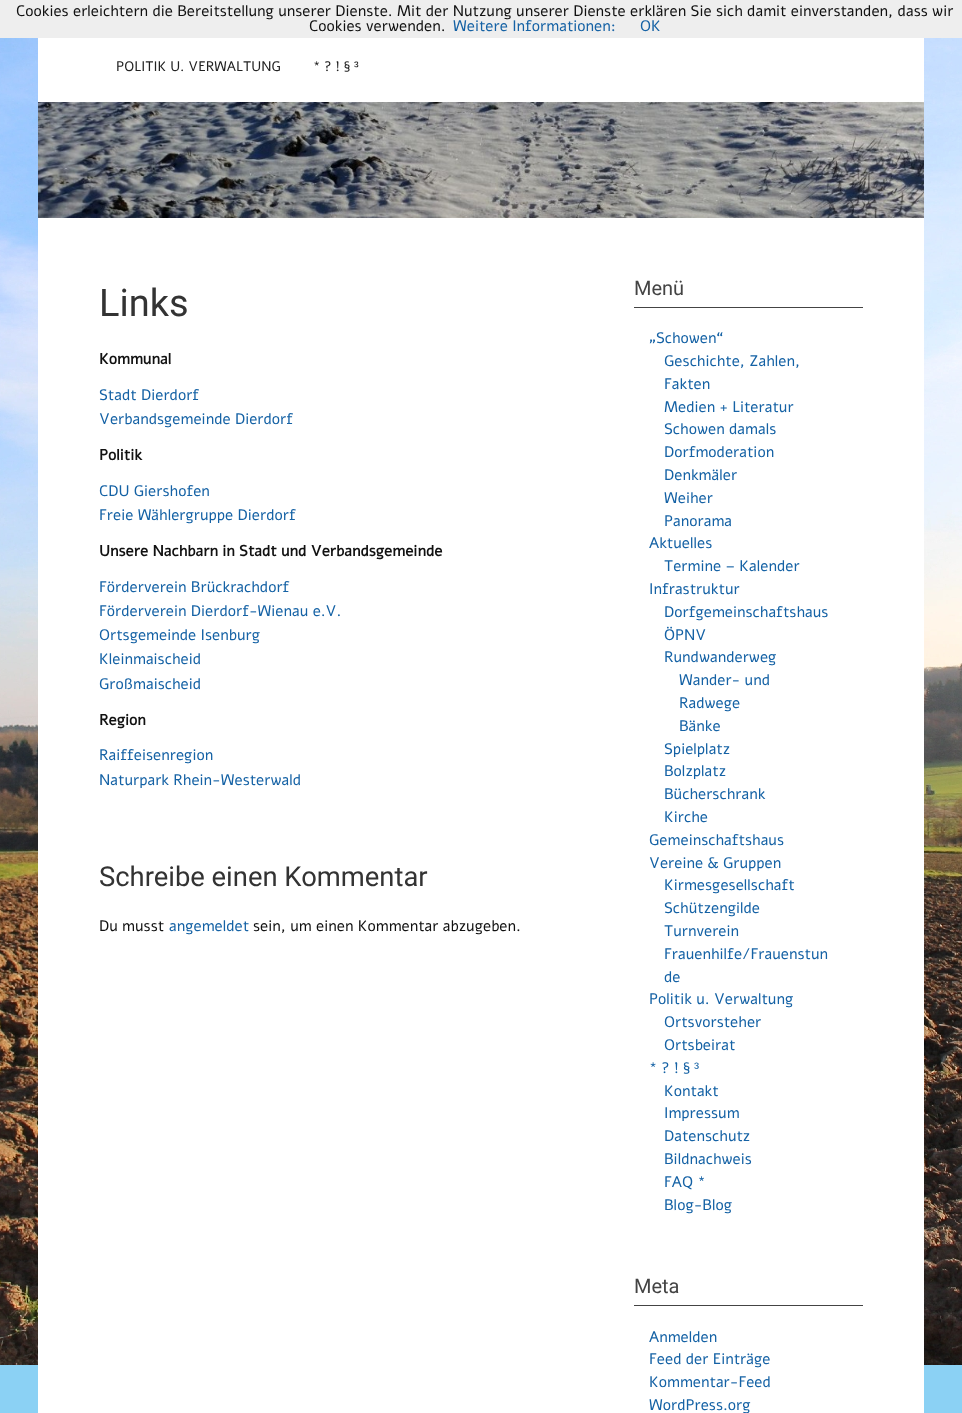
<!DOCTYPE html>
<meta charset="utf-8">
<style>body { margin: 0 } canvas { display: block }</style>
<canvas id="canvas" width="962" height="1413"></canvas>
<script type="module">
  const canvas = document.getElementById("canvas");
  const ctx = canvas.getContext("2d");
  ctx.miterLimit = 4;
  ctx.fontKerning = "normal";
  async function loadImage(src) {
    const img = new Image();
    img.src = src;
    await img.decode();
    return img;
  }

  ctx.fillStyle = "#8bd1f4";
  ctx.fillRect(0, 0, 962, 1413);
  ctx.drawImage(await loadImage("img1.png"), 0, 38, 962, 1327);
  ctx.fillStyle = "#eeeeee";
  ctx.fillRect(0, 0, 962, 38);
  ctx.font = "15.2px Alef";
  ctx.fillStyle = "#111111";
  ctx.fillText("Cookies erleichtern die Bereitstellung unserer Dienste. Mit der Nutzung unserer Dienste erklären Sie sich damit einverstanden, dass wir", 16, 16);
  ctx.fillText("Cookies verwenden.", 309, 31);
  ctx.fillStyle = "#1562a5";
  ctx.fillText("Weitere Informationen:", 453, 31);
  ctx.fillText("OK", 640, 31);
  ctx.fillStyle = "#ffffff";
  ctx.fillRect(38, 38, 886, 1375);
  ctx.font = "13.75px Alef";
  ctx.fillStyle = "#222222";
  ctx.fillText("POLITIK U. VERWALTUNG", 116, 71);
  ctx.fillText("* ? ! §", 313, 71);
  ctx.font = "13.75px Liberation Sans";
  ctx.fillText("³", 354, 71);
  ctx.drawImage(await loadImage("img2.png"), 38, 102, 886, 116);
  ctx.font = "38px Roboto";
  ctx.fillStyle = "#333333";
  ctx.fillText("Links", 99, 316);
  ctx.font = "bold 15.2px Alef";
  ctx.fillStyle = "#111111";
  ctx.fillText("Kommunal", 99, 364);
  ctx.font = "15.2px Alef";
  ctx.fillStyle = "#1562a5";
  ctx.fillText("Stadt Dierdorf", 99, 400);
  ctx.fillText("Verbandsgemeinde Dierdorf", 99, 424);
  ctx.font = "bold 15.2px Alef";
  ctx.fillStyle = "#111111";
  ctx.fillText("Politik", 99, 460);
  ctx.font = "15.2px Alef";
  ctx.fillStyle = "#1562a5";
  ctx.fillText("CDU Giershofen", 99, 496);
  ctx.fillText("Freie Wählergruppe Dierdorf", 99, 520);
  ctx.font = "bold 15.2px Alef";
  ctx.fillStyle = "#111111";
  ctx.fillText("Unsere Nachbarn in Stadt und Verbandsgemeinde", 99, 556);
  ctx.font = "15.2px Alef";
  ctx.fillStyle = "#1562a5";
  ctx.fillText("Förderverein Brückrachdorf", 99, 592);
  ctx.fillText("Förderverein Dierdorf-Wienau e.V.", 99, 616);
  ctx.fillText("Ortsgemeinde Isenburg", 99, 640);
  ctx.fillText("Kleinmaischeid", 99, 664);
  ctx.fillText("Großmaischeid", 99, 689);
  ctx.font = "bold 15.2px Alef";
  ctx.fillStyle = "#111111";
  ctx.fillText("Region", 99, 725);
  ctx.font = "15.2px Alef";
  ctx.fillStyle = "#1562a5";
  ctx.fillText("Raiffeisenregion", 99, 760);
  ctx.fillText("Naturpark Rhein-Westerwald", 99, 785);
  ctx.font = "27.4px Roboto";
  ctx.fillStyle = "#333333";
  ctx.fillText("Schreibe einen Kommentar", 99, 886);
  ctx.font = "15.2px Alef";
  ctx.fillStyle = "#111111";
  ctx.fillText("Du musst", 99, 931);
  ctx.fillStyle = "#1562a5";
  ctx.fillText("angemeldet", 169, 931);
  ctx.fillStyle = "#111111";
  ctx.fillText("sein, um einen Kommentar abzugeben.", 253, 931);
  ctx.fillStyle = "#444444";
  ctx.fillRect(634, 307, 229, 1);
  ctx.font = "20px Roboto";
  ctx.fillText("Menü", 634, 295);
  ctx.font = "15.2px Alef";
  ctx.fillStyle = "#1562a5";
  ctx.fillText("„Schowen“", 649, 343);
  ctx.fillText("Geschichte, Zahlen,", 664, 366);
  ctx.fillText("Fakten", 664, 389);
  ctx.fillText("Medien + Literatur", 664, 412);
  ctx.fillText("Schowen damals", 664, 434);
  ctx.fillText("Dorfmoderation", 664, 457);
  ctx.fillText("Denkmäler", 664, 480);
  ctx.fillText("Weiher", 664, 503);
  ctx.fillText("Panorama", 664, 526);
  ctx.fillText("Aktuelles", 649, 548);
  ctx.fillText("Termine – Kalender", 664, 571);
  ctx.fillText("Infrastruktur", 649, 594);
  ctx.fillText("Dorfgemeinschaftshaus", 664, 617);
  ctx.fillText("ÖPNV", 664, 640);
  ctx.fillText("Rundwanderweg", 664, 662);
  ctx.fillText("Wander- und", 679, 685);
  ctx.fillText("Radwege", 679, 708);
  ctx.fillText("Bänke", 679, 731);
  ctx.fillText("Spielplatz", 664, 754);
  ctx.fillText("Bolzplatz", 664, 776);
  ctx.fillText("Bücherschrank", 664, 799);
  ctx.fillText("Kirche", 664, 822);
  ctx.fillText("Gemeinschaftshaus", 649, 845);
  ctx.fillText("Vereine & Gruppen", 649, 868);
  ctx.fillText("Kirmesgesellschaft", 664, 890);
  ctx.fillText("Schützengilde", 664, 913);
  ctx.fillText("Turnverein", 664, 936);
  ctx.fillText("Frauenhilfe/Frauenstun", 664, 959);
  ctx.fillText("de", 664, 982);
  ctx.fillText("Politik u. Verwaltung", 649, 1004);
  ctx.fillText("Ortsvorsteher", 664, 1027);
  ctx.fillText("Ortsbeirat", 664, 1050);
  ctx.fillText("* ? ! §", 649, 1073);
  ctx.font = "15.2px Liberation Sans";
  ctx.fillText("³", 694, 1073);
  ctx.font = "15.2px Alef";
  ctx.fillText("Kontakt", 664, 1096);
  ctx.fillText("Impressum", 664, 1118);
  ctx.fillText("Datenschutz", 664, 1141);
  ctx.fillText("Bildnachweis", 664, 1164);
  ctx.fillText("FAQ *", 664, 1187);
  ctx.fillText("Blog-Blog", 664, 1210);
  ctx.fillStyle = "#444444";
  ctx.fillRect(634, 1305, 229, 1);
  ctx.font = "20px Roboto";
  ctx.fillText("Meta", 634, 1293);
  ctx.font = "15.2px Alef";
  ctx.fillStyle = "#1562a5";
  ctx.fillText("Anmelden", 649, 1342);
  ctx.fillText("Feed der Einträge", 649, 1364);
  ctx.fillText("Kommentar-Feed", 649, 1387);
  ctx.fillText("WordPress.org", 649, 1410);
</script>
